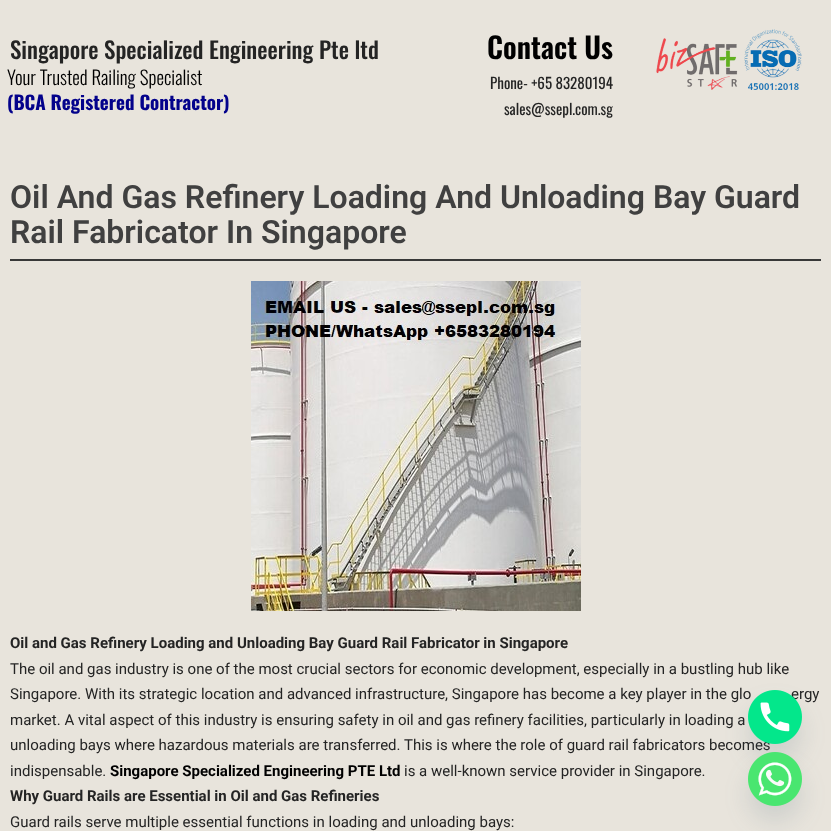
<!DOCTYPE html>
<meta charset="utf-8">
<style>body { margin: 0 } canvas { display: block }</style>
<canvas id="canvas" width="831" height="831"></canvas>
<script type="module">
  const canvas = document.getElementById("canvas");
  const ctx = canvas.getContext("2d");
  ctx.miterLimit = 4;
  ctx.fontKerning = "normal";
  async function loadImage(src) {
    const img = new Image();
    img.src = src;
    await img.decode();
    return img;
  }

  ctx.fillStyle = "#e8e4dc";
  ctx.fillRect(0, 0, 831, 831);
  ctx.font = "500 23px Oswald";
  ctx.fillStyle = "#242424";
  ctx.fillText("Singapore Specialized Engineering Pte ltd", 10, 59);
  ctx.font = "300 19px Oswald";
  ctx.fillStyle = "#000000";
  ctx.fillText("Your Trusted Railing Specialist", 7, 85);
  ctx.font = "bold 19px Oswald";
  ctx.fillStyle = "#03028b";
  ctx.fillText("(BCA Registered Contractor)", 7, 110);
  ctx.font = "600 29px Oswald";
  ctx.fillStyle = "#000000";
  ctx.fillText("Contact Us", 487, 59);
  ctx.font = "15px Oswald";
  ctx.fillStyle = "#242424";
  ctx.fillText("Phone- +65 83280194", 490, 89);
  ctx.fillText("sales@ssepl.com.sg", 504, 115);
  ctx.drawImage(await loadImage("img1.png"), 656, 29, 146, 61);
  ctx.fillStyle = "#383838";
  ctx.fillRect(10, 259, 811, 2);
  ctx.font = "600 32px Roboto";
  ctx.fillStyle = "#404040";
  ctx.fillText("Oil And Gas Refinery Loading And Unloading Bay Guard", 10, 208);
  ctx.fillText("Rail Fabricator In Singapore", 10, 243);
  ctx.drawImage(await loadImage("img2.png"), 251, 281, 330, 330);
  ctx.font = "bold 15px Roboto";
  ctx.fillStyle = "#242424";
  ctx.fillText("Oil and Gas Refinery Loading and Unloading Bay Guard Rail Fabricator in Singapore", 10, 648);
  ctx.font = "15px Roboto";
  ctx.fillText("The oil and gas industry is one of the most crucial sectors for economic development, especially in a bustling hub like", 10, 674);
  ctx.fillText("Singapore. With its strategic location and advanced infrastructure, Singapore has become a key player in the glo", 10, 699);
  ctx.fillText("ergy", 791, 699);
  ctx.fillText("market. A vital aspect of this industry is ensuring safety in oil and gas refinery facilities, particularly in loading a", 10, 725);
  ctx.fillText("unloading bays where hazardous materials are transferred. This is where the role of guard rail fabricators becomes", 10, 750);
  ctx.fillText("indispensable.", 10, 776);
  ctx.font = "bold 15px Roboto";
  ctx.fillStyle = "#000000";
  ctx.fillText("Singapore Specialized Engineering PTE Ltd", 110, 776);
  ctx.font = "15px Roboto";
  ctx.fillStyle = "#242424";
  ctx.fillText("is a well-known service provider in Singapore.", 404, 776);
  ctx.font = "bold 15px Roboto";
  ctx.fillText("Why Guard Rails are Essential in Oil and Gas Refineries", 10, 801);
  ctx.font = "15px Roboto";
  ctx.fillText("Guard rails serve multiple essential functions in loading and unloading bays:", 10, 827);
  ctx.fillStyle = "rgba(73, 104, 126, 0.16)";
  ctx.filter = "blur(12px)";
  ctx.beginPath();
  ctx.roundRect(748, 706, 54, 54, 27);
  ctx.fill();
  ctx.filter = "none";
  ctx.drawImage(await loadImage("img3.png"), 748, 690, 54, 54);
  ctx.filter = "blur(12px)";
  ctx.beginPath();
  ctx.roundRect(748, 768, 54, 54, 27);
  ctx.fill();
  ctx.filter = "none";
  ctx.drawImage(await loadImage("img4.png"), 748, 752, 54, 54);
</script>
